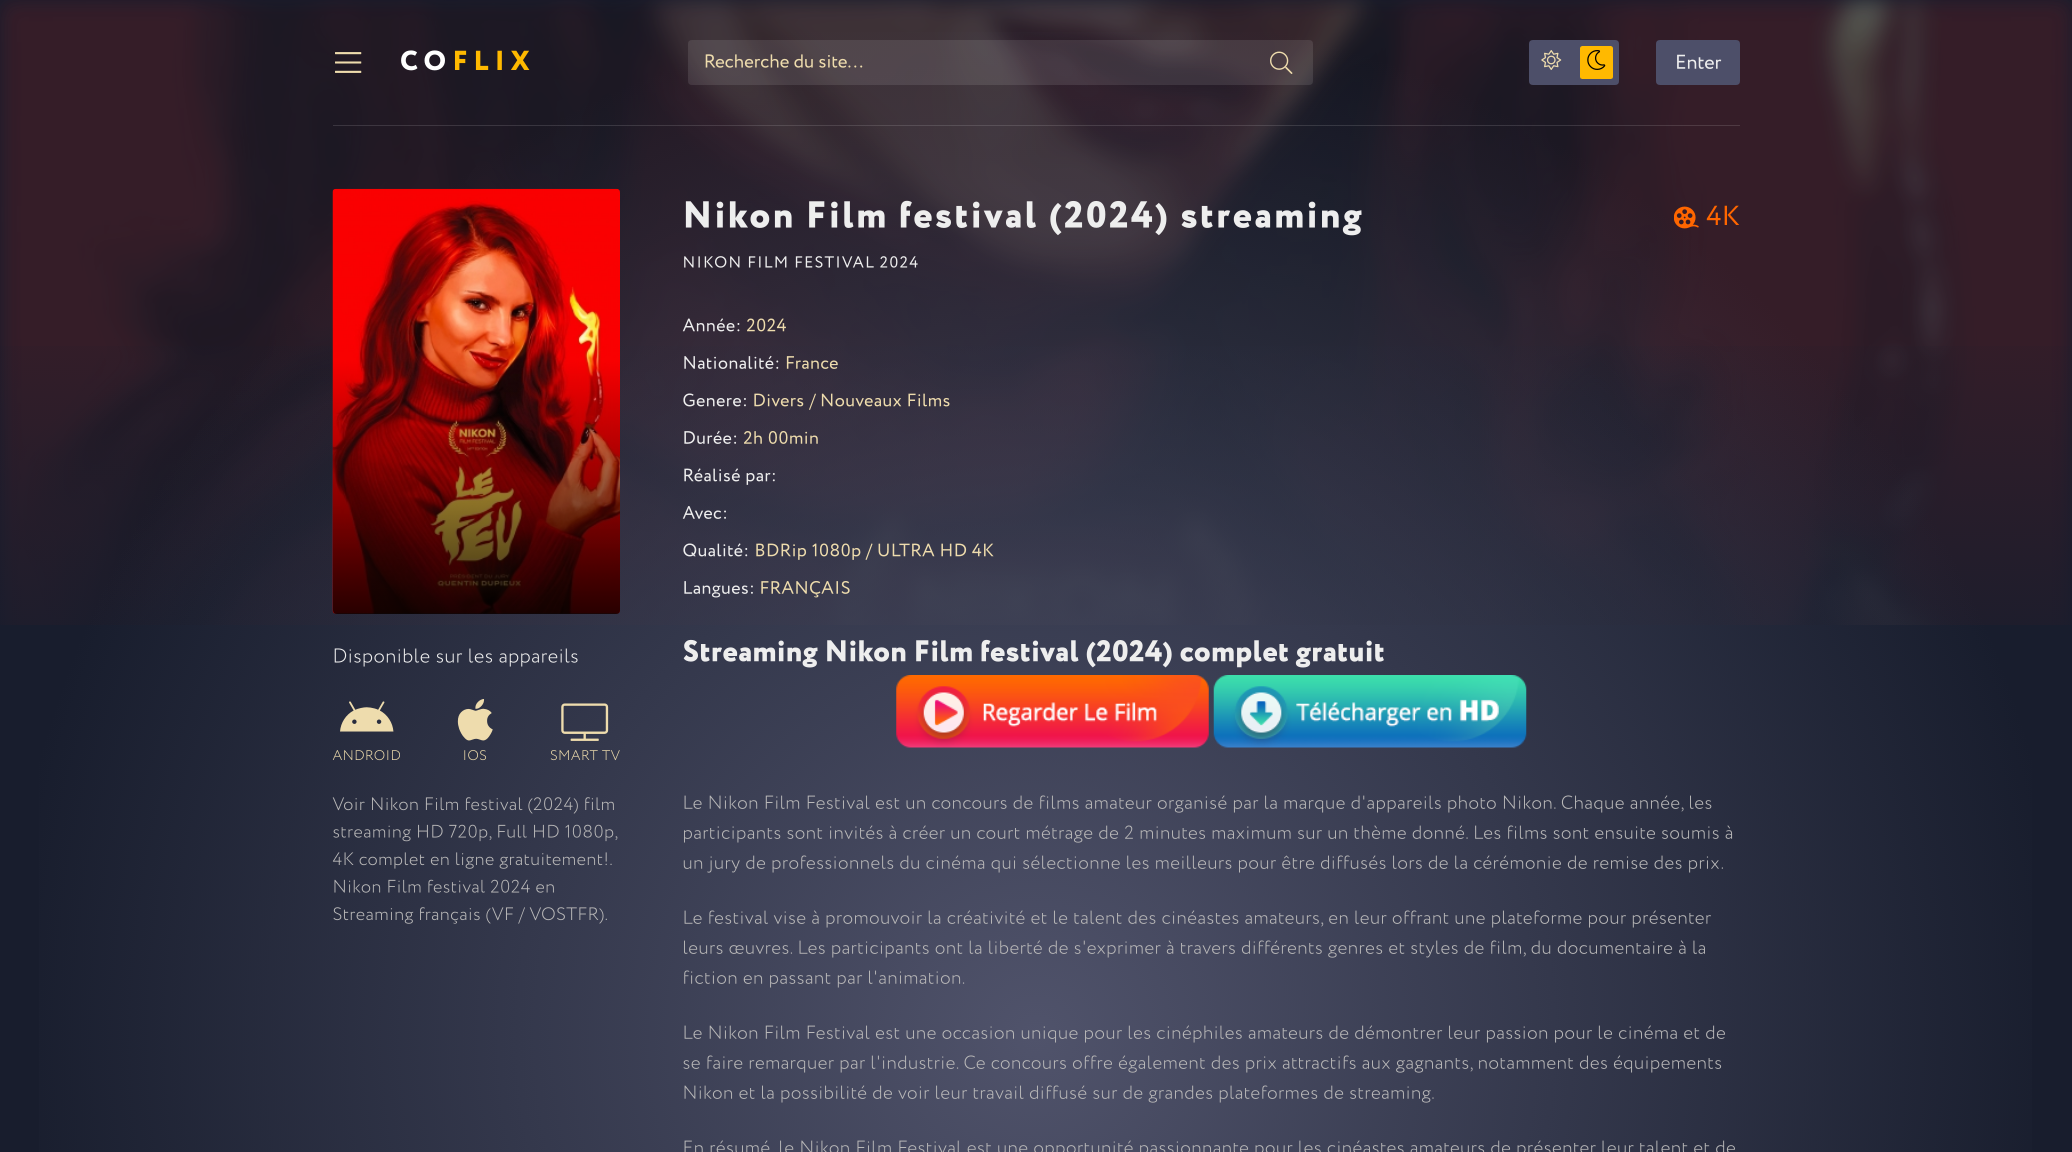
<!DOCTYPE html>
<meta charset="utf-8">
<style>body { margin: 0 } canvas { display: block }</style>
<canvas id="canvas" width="2072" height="1152"></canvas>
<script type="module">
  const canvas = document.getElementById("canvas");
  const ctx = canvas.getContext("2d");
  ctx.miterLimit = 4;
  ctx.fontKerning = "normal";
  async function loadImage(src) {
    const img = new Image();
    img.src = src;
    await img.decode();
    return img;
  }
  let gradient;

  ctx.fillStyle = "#181d2d";
  ctx.fillRect(0, 0, 2072, 1152);
  ctx.drawImage(await loadImage("img1.png"), 0, 0, 2072, 625);
  gradient = ctx.createLinearGradient(1036, 625, 1036, 313);
  gradient.addColorStop(0, "rgba(24, 29, 45, 0.79)");
  gradient.addColorStop(1, "rgba(24, 29, 45, 0)");
  ctx.fillStyle = gradient;
  ctx.fillRect(0, 346, 2072, 279);
  gradient = ctx.createRadialGradient(1036, 1036, 0, 1036, 1036, 1036);
  gradient.addColorStop(0, "#50536b");
  gradient.addColorStop(1, "rgba(80, 83, 107, 0)");
  ctx.fillStyle = gradient;
  ctx.fillRect(39, 32, 1993, 1120);
  ctx.fillStyle = "rgba(255, 255, 255, 0.13)";
  ctx.fillRect(333, 125, 1407, 1);
  ctx.drawImage(await loadImage("img2.png"), 335, 52, 27, 21);
  ctx.drawImage(await loadImage("img3.png"), 401, 50, 44, 21);
  ctx.drawImage(await loadImage("img4.png"), 454, 50, 76, 20);
  ctx.fillStyle = "rgba(255, 255, 255, 0.1)";
  ctx.beginPath();
  ctx.roundRect(688, 40, 625, 45, 4);
  ctx.fill();
  ctx.drawImage(await loadImage("img5.png"), 705, 54, 158, 14);
  ctx.drawImage(await loadImage("img6.png"), 1270, 51, 23, 23);
  ctx.fillStyle = "#4d4f69";
  ctx.beginPath();
  ctx.roundRect(1529, 40, 90, 45, 4);
  ctx.fill();
  ctx.drawImage(await loadImage("img7.png"), 1541, 50, 21, 20);
  ctx.fillStyle = "#ffb900";
  ctx.beginPath();
  ctx.roundRect(1580, 46, 33, 33, 2.5);
  ctx.fill();
  ctx.drawImage(await loadImage("img8.png"), 1587, 50, 19, 20);
  ctx.fillStyle = "#4d4f69";
  ctx.beginPath();
  ctx.roundRect(1656, 40, 84, 45, 4);
  ctx.fill();
  ctx.drawImage(await loadImage("img9.png"), 1677, 54, 45, 15);
  ctx.drawImage(await loadImage("img10.png"), 332, 188, 288, 426);
  gradient = ctx.createLinearGradient(476, 614, 476, 359);
  gradient.addColorStop(0, "rgba(0, 0, 0, 0.8)");
  gradient.addColorStop(1, "rgba(0, 0, 0, 0)");
  ctx.fillStyle = gradient;
  ctx.beginPath();
  ctx.roundRect(333, 359, 287, 255, [0, 0, 4, 4]);
  ctx.fill();
  ctx.drawImage(await loadImage("img11.png"), 334, 648, 244, 19);
  ctx.drawImage(await loadImage("img12.png"), 340, 701, 54, 31);
  ctx.drawImage(await loadImage("img13.png"), 332, 750, 68, 11);
  ctx.drawImage(await loadImage("img14.png"), 457, 699, 36, 42);
  ctx.drawImage(await loadImage("img15.png"), 464, 750, 23, 11);
  ctx.drawImage(await loadImage("img16.png"), 561, 703, 48, 38);
  ctx.drawImage(await loadImage("img17.png"), 550, 750, 70, 11);
  ctx.drawImage(await loadImage("img18.png"), 332, 797, 33, 14);
  ctx.drawImage(await loadImage("img19.png"), 372, 797, 242, 17);
  ctx.drawImage(await loadImage("img20.png"), 333, 824, 285, 18);
  ctx.drawImage(await loadImage("img21.png"), 332, 852, 22, 13);
  ctx.drawImage(await loadImage("img22.png"), 359, 852, 253, 17);
  ctx.drawImage(await loadImage("img23.png"), 334, 879, 220, 14);
  ctx.drawImage(await loadImage("img24.png"), 333, 907, 274, 17);
  ctx.drawImage(await loadImage("img25.png"), 685, 200, 677, 36);
  ctx.drawImage(await loadImage("img26.png"), 1674, 206, 25, 23);
  ctx.drawImage(await loadImage("img27.png"), 1706, 205, 34, 20);
  ctx.drawImage(await loadImage("img28.png"), 684, 256, 234, 12);
  ctx.drawImage(await loadImage("img29.png"), 682, 318, 58, 14);
  ctx.drawImage(await loadImage("img30.png"), 747, 318, 39, 14);
  ctx.drawImage(await loadImage("img31.png"), 684, 355, 95, 14);
  ctx.drawImage(await loadImage("img32.png"), 786, 356, 52, 13);
  ctx.drawImage(await loadImage("img33.png"), 683, 393, 63, 14);
  ctx.drawImage(await loadImage("img34.png"), 754, 393, 50, 14);
  ctx.fillStyle = "#eedcad";
  ctx.beginPath();
  ctx.moveTo(809, 409.5);
  ctx.lineTo(815, 393.5);
  ctx.lineTo(816, 394);
  ctx.lineTo(810, 410);
  ctx.closePath();
  ctx.fill();
  ctx.drawImage(await loadImage("img35.png"), 821, 393, 129, 14);
  ctx.drawImage(await loadImage("img36.png"), 684, 430, 53, 14);
  ctx.drawImage(await loadImage("img37.png"), 744, 431, 74, 13);
  ctx.drawImage(await loadImage("img38.png"), 684, 468, 91, 17);
  ctx.drawImage(await loadImage("img39.png"), 682, 506, 44, 13);
  ctx.drawImage(await loadImage("img40.png"), 683, 543, 65, 14);
  ctx.drawImage(await loadImage("img41.png"), 756, 543, 238, 17);
  ctx.drawImage(await loadImage("img42.png"), 684, 581, 69, 17);
  ctx.drawImage(await loadImage("img43.png"), 761, 581, 89, 17);
  ctx.drawImage(await loadImage("img44.png"), 683, 639, 701, 29);
  ctx.drawImage(await loadImage("img45.png"), 896, 675, 313, 73);
  ctx.drawImage(await loadImage("img46.png"), 1213, 675, 314, 73);
  ctx.drawImage(await loadImage("img47.png"), 684, 795, 1028, 18);
  ctx.drawImage(await loadImage("img48.png"), 684, 825, 1049, 18);
  ctx.drawImage(await loadImage("img49.png"), 683, 855, 1040, 18);
  ctx.drawImage(await loadImage("img50.png"), 684, 910, 1027, 18);
  ctx.drawImage(await loadImage("img51.png"), 684, 940, 1021, 18);
  ctx.drawImage(await loadImage("img52.png"), 684, 970, 281, 18);
  ctx.drawImage(await loadImage("img53.png"), 684, 1025, 1041, 18);
  ctx.drawImage(await loadImage("img54.png"), 683, 1055, 1039, 18);
  ctx.drawImage(await loadImage("img55.png"), 684, 1085, 750, 18);
  ctx.drawImage(await loadImage("img56.png"), 684, 1140, 1051, 12);
</script>
